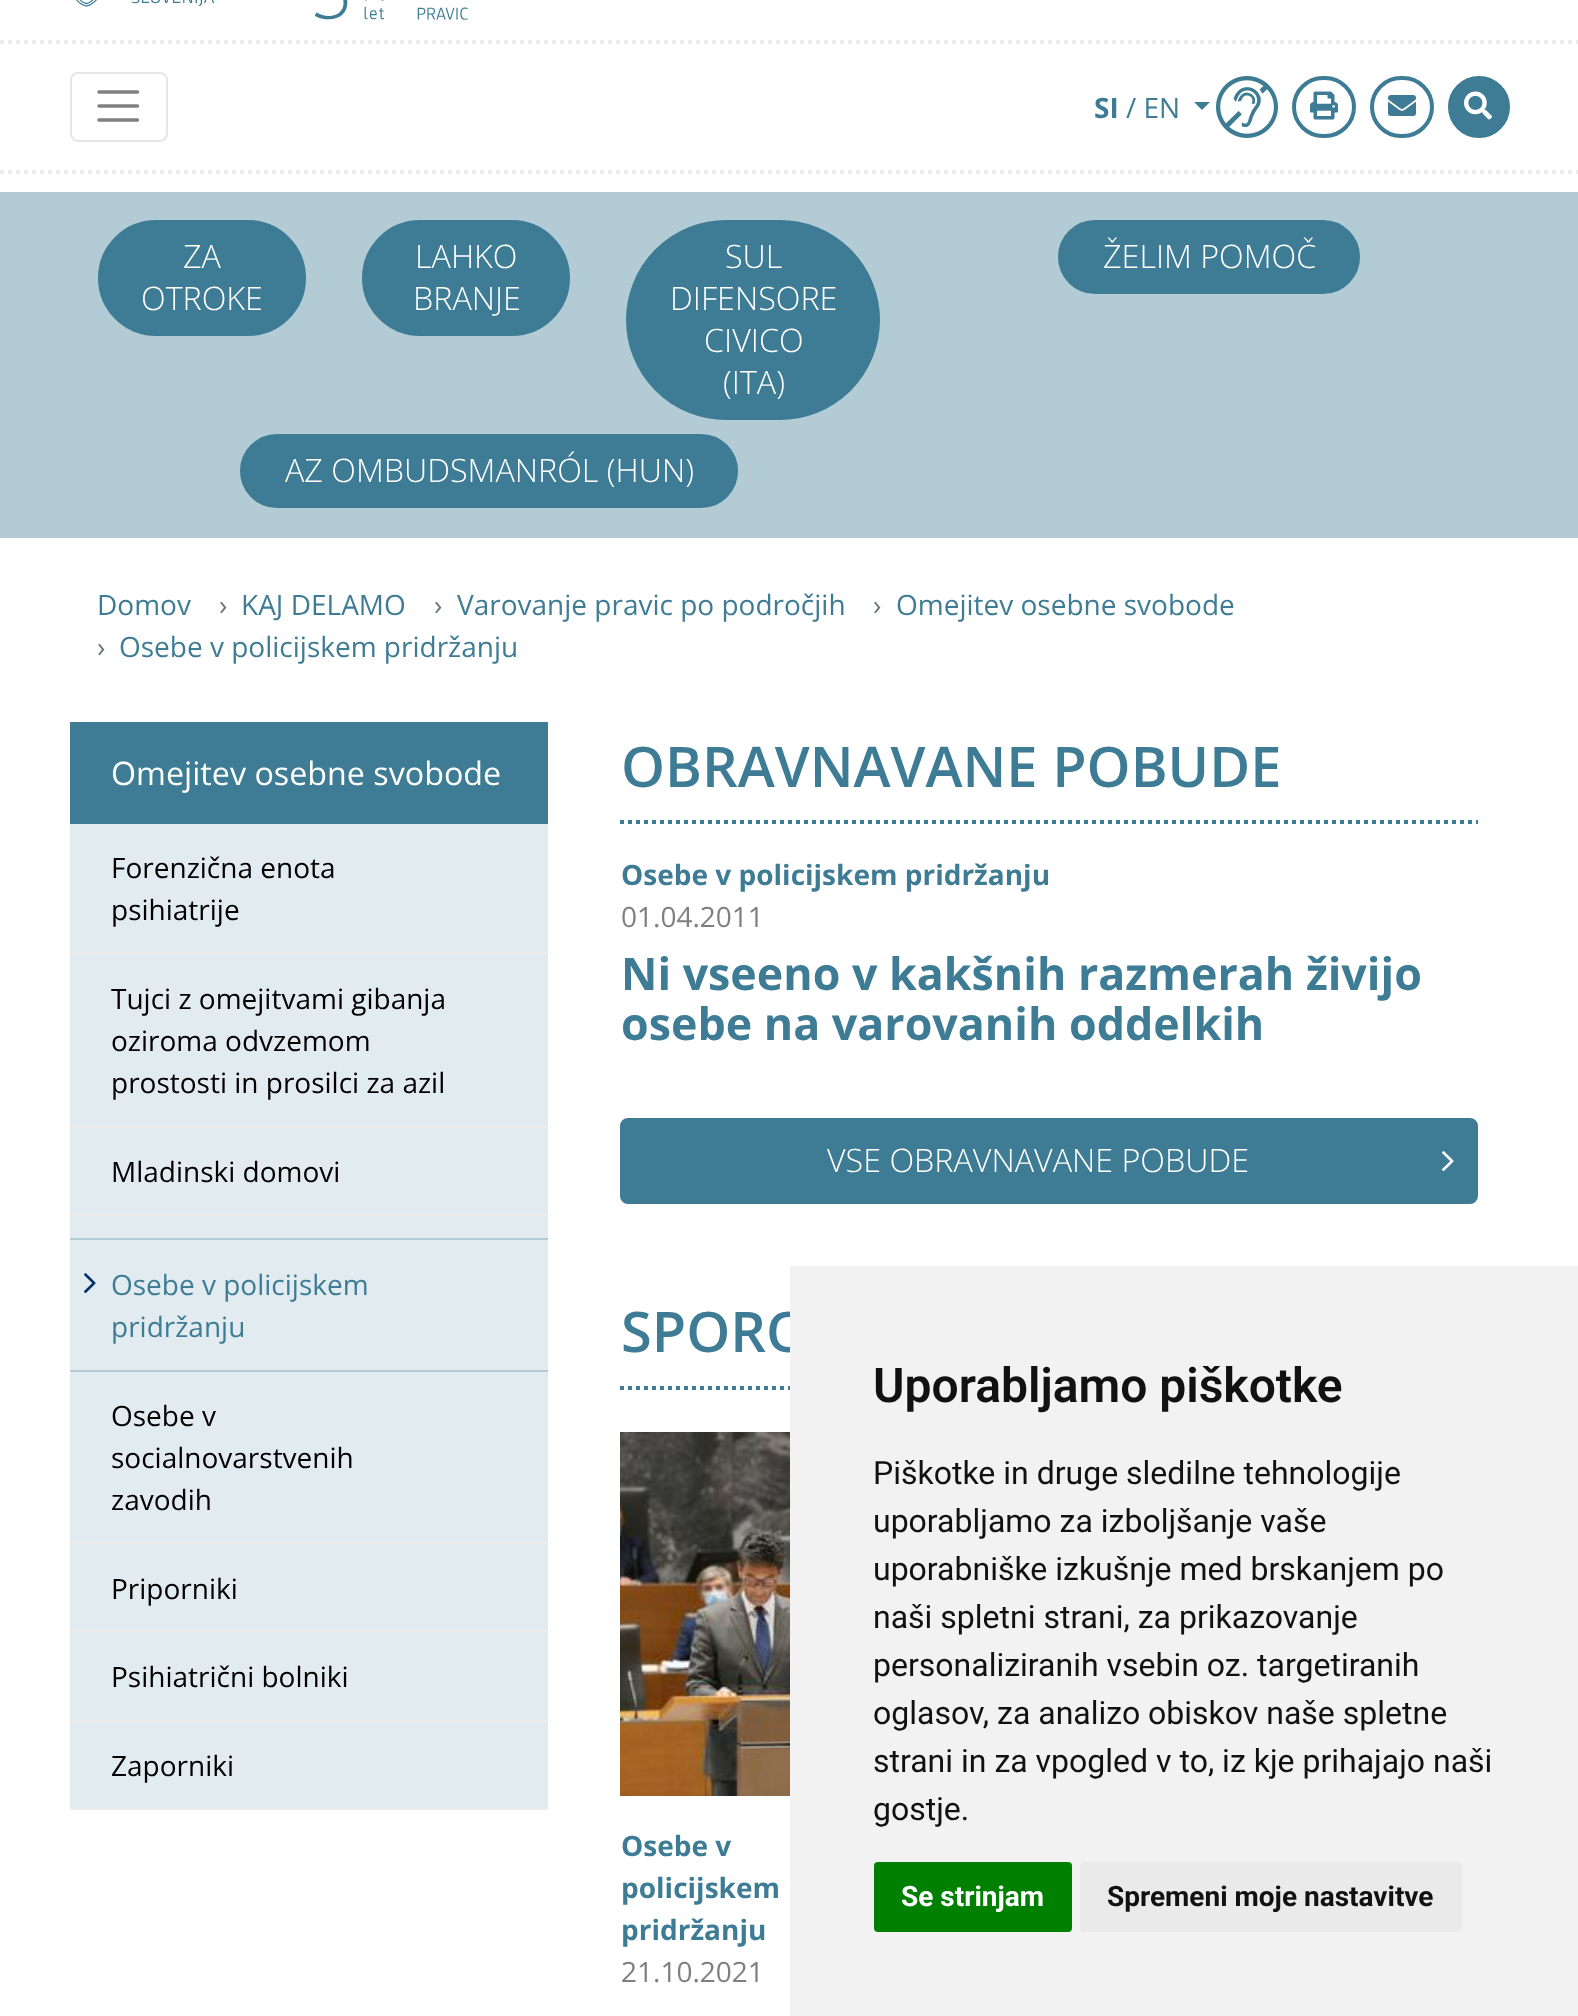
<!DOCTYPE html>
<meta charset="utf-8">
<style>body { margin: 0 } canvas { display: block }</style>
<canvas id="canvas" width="1578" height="2016"></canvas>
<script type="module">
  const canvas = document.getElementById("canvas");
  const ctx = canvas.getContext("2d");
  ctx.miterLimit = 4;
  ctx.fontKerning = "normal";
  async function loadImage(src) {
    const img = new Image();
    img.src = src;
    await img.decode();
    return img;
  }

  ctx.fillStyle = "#ffffff";
  ctx.fillRect(0, 0, 1578, 2016);
  ctx.drawImage(await loadImage("img1.png"), 76, 0, 392, 20);
  ctx.beginPath();
  ctx.moveTo(0, 42);
  ctx.lineTo(1578, 42);
  ctx.strokeStyle = "#ececec";
  ctx.lineWidth = 4;
  ctx.setLineDash([4, 4]);
  ctx.stroke();
  ctx.beginPath();
  ctx.moveTo(0, 172);
  ctx.lineTo(1578, 172);
  ctx.stroke();
  ctx.beginPath();
  ctx.roundRect(71, 73, 96, 68, 7);
  ctx.strokeStyle = "#e6e6e6";
  ctx.lineWidth = 2;
  ctx.setLineDash([]);
  ctx.stroke();
  ctx.beginPath();
  ctx.moveTo(99, 92);
  ctx.lineTo(137.5, 92);
  ctx.moveTo(99, 106);
  ctx.lineTo(137.5, 106);
  ctx.moveTo(99, 120);
  ctx.lineTo(137.5, 120);
  ctx.strokeStyle = "#808080";
  ctx.lineWidth = 3.5;
  ctx.lineCap = "round";
  ctx.stroke();
  ctx.font = "bold 28px Open Sans";
  ctx.fillStyle = "#3e7c95";
  ctx.fillText("SI", 1094, 118);
  ctx.font = "28px Open Sans";
  ctx.fillText("/ EN", 1126, 118);
  ctx.beginPath();
  ctx.moveTo(1194, 102);
  ctx.lineTo(1210, 102);
  ctx.lineTo(1202, 110);
  ctx.closePath();
  ctx.fill();
  ctx.drawImage(await loadImage("img2.png"), 1216, 76, 62, 62);
  ctx.beginPath();
  ctx.roundRect(1294, 78, 60, 58, 29);
  ctx.strokeStyle = "#3e7c95";
  ctx.lineWidth = 4;
  ctx.stroke();
  ctx.drawImage(await loadImage("img3.png"), 1310, 91, 28, 29);
  ctx.beginPath();
  ctx.roundRect(1372, 78, 60, 58, 29);
  ctx.stroke();
  ctx.drawImage(await loadImage("img4.png"), 1388, 95, 28, 21);
  ctx.beginPath();
  ctx.arc(1479, 107, 29, 0, Math.PI * 2);
  ctx.fill();
  ctx.stroke();
  ctx.drawImage(await loadImage("img5.png"), 1464, 91, 28, 29);
  ctx.fillStyle = "#b3cbd5";
  ctx.fillRect(0, 192, 1578, 346);
  ctx.fillStyle = "#3e7c95";
  ctx.beginPath();
  ctx.roundRect(99, 221, 206, 114, 57);
  ctx.fill();
  ctx.lineWidth = 2;
  ctx.stroke();
  ctx.font = "300 32.25px Open Sans";
  ctx.fillStyle = "#ffffff";
  ctx.fillText("ZA", 183, 268);
  ctx.fillText("OTROKE", 141, 310);
  ctx.fillStyle = "#3e7c95";
  ctx.beginPath();
  ctx.roundRect(363, 221, 206, 114, 57);
  ctx.fill();
  ctx.stroke();
  ctx.fillStyle = "#ffffff";
  ctx.fillText("LAHKO", 415, 268);
  ctx.fillText("BRANJE", 413, 310);
  ctx.fillStyle = "#3e7c95";
  ctx.beginPath();
  ctx.roundRect(627, 221, 252, 198, 99);
  ctx.fill();
  ctx.stroke();
  ctx.fillStyle = "#ffffff";
  ctx.fillText("SUL", 725, 268);
  ctx.fillText("DIFENSORE", 670, 310);
  ctx.fillText("CIVICO", 704, 352);
  ctx.fillText("(ITA)", 723, 394);
  ctx.fillStyle = "#3e7c95";
  ctx.beginPath();
  ctx.roundRect(241, 435, 496, 72, 36);
  ctx.fill();
  ctx.stroke();
  ctx.fillStyle = "#ffffff";
  ctx.fillText("AZ OMBUDSMANRÓL (HUN)", 285, 482);
  ctx.fillStyle = "#3e7c95";
  ctx.beginPath();
  ctx.roundRect(1059, 221, 300, 72, 36);
  ctx.fill();
  ctx.stroke();
  ctx.fillStyle = "#ffffff";
  ctx.fillText("ŽELIM POMOČ", 1103, 268);
  ctx.font = "28px Open Sans";
  ctx.fillStyle = "#3e7c95";
  ctx.fillText("Domov", 97, 615);
  ctx.fillStyle = "#6c757d";
  ctx.fillText("›", 219, 615);
  ctx.fillStyle = "#3e7c95";
  ctx.fillText("KAJ DELAMO", 241, 615);
  ctx.fillStyle = "#6c757d";
  ctx.fillText("›", 434, 615);
  ctx.fillStyle = "#3e7c95";
  ctx.fillText("Varovanje pravic po področjih", 457, 615);
  ctx.fillStyle = "#6c757d";
  ctx.fillText("›", 873, 615);
  ctx.fillStyle = "#3e7c95";
  ctx.fillText("Omejitev osebne svobode", 896, 615);
  ctx.fillStyle = "#6c757d";
  ctx.fillText("›", 97, 657);
  ctx.fillStyle = "#3e7c95";
  ctx.fillText("Osebe v policijskem pridržanju", 119, 657);
  ctx.fillStyle = "#e2ebf0";
  ctx.fillRect(70, 824, 478, 984);
  ctx.fillStyle = "#3e7c95";
  ctx.fillRect(70, 722, 478, 102);
  ctx.font = "32.25px Open Sans";
  ctx.fillStyle = "#ffffff";
  ctx.fillText("Omejitev osebne svobode", 111, 785);
  ctx.fillStyle = "#ececec";
  ctx.fillRect(70, 952, 478, 2);
  ctx.font = "28px Open Sans";
  ctx.fillStyle = "#000000";
  ctx.fillText("Forenzična enota", 111, 878);
  ctx.fillText("psihiatrije", 111, 920);
  ctx.fillStyle = "#ececec";
  ctx.fillRect(70, 1126, 478, 2);
  ctx.fillStyle = "#000000";
  ctx.fillText("Tujci z omejitvami gibanja", 111, 1009);
  ctx.fillText("oziroma odvzemom", 111, 1051);
  ctx.fillText("prostosti in prosilci za azil", 111, 1093);
  ctx.fillStyle = "#ececec";
  ctx.fillRect(70, 1214, 478, 2);
  ctx.fillStyle = "#000000";
  ctx.fillText("Mladinski domovi", 111, 1182);
  ctx.fillStyle = "#b3cbd5";
  ctx.fillRect(70, 1238, 478, 2);
  ctx.fillRect(70, 1370, 478, 2);
  ctx.drawImage(await loadImage("img6.png"), 84, 1273, 12, 20);
  ctx.fillStyle = "#3e7c95";
  ctx.fillText("Osebe v policijskem", 111, 1295);
  ctx.fillText("pridržanju", 111, 1337);
  ctx.fillStyle = "#ececec";
  ctx.fillRect(70, 1542, 478, 2);
  ctx.fillStyle = "#000000";
  ctx.fillText("Osebe v", 111, 1426);
  ctx.fillText("socialnovarstvenih", 111, 1468);
  ctx.fillText("zavodih", 111, 1510);
  ctx.fillStyle = "#ececec";
  ctx.fillRect(70, 1630, 478, 2);
  ctx.fillStyle = "#000000";
  ctx.fillText("Priporniki", 111, 1599);
  ctx.fillStyle = "#ececec";
  ctx.fillRect(70, 1720, 478, 2);
  ctx.fillStyle = "#000000";
  ctx.fillText("Psihiatrični bolniki", 111, 1687);
  ctx.fillStyle = "#ececec";
  ctx.fillRect(70, 1808, 478, 2);
  ctx.fillStyle = "#000000";
  ctx.fillText("Zaporniki", 111, 1776);
  ctx.beginPath();
  ctx.moveTo(620, 822);
  ctx.lineTo(1478, 822);
  ctx.lineWidth = 4;
  ctx.lineCap = "butt";
  ctx.setLineDash([4, 4]);
  ctx.stroke();
  ctx.font = "600 56px Open Sans";
  ctx.fillStyle = "#3e7c95";
  ctx.fillText("OBRAVNAVANE POBUDE", 621, 787);
  ctx.font = "bold 28px Open Sans";
  ctx.fillText("Osebe v policijskem pridržanju", 621, 885);
  ctx.font = "28px Open Sans";
  ctx.fillStyle = "#7f7f7f";
  ctx.fillText("01.04.2011", 621, 927);
  ctx.font = "bold 44.75px Open Sans";
  ctx.fillStyle = "#3e7c95";
  ctx.fillText("Ni vseeno v kakšnih razmerah živijo", 621, 990);
  ctx.fillText("osebe na varovanih oddelkih", 621, 1040);
  ctx.beginPath();
  ctx.roundRect(621, 1119, 856, 84, 7);
  ctx.fill();
  ctx.lineWidth = 2;
  ctx.setLineDash([]);
  ctx.stroke();
  ctx.font = "300 32.25px Open Sans";
  ctx.fillStyle = "#ffffff";
  ctx.fillText("VSE OBRAVNAVANE POBUDE", 827, 1172);
  ctx.drawImage(await loadImage("img7.png"), 1442, 1151, 12, 20);
  ctx.beginPath();
  ctx.moveTo(620, 1388);
  ctx.lineTo(1478, 1388);
  ctx.lineWidth = 4;
  ctx.setLineDash([4, 4]);
  ctx.stroke();
  ctx.font = "600 56px Open Sans";
  ctx.fillStyle = "#3e7c95";
  ctx.fillText("SPORO", 621, 1352);
  ctx.drawImage(await loadImage("img8.png"), 620, 1432, 170, 364);
  ctx.font = "bold 28px Open Sans";
  ctx.fillText("Osebe v", 621, 1856);
  ctx.fillText("policijskem", 621, 1898);
  ctx.fillText("pridržanju", 621, 1940);
  ctx.font = "28px Open Sans";
  ctx.fillStyle = "#7f7f7f";
  ctx.fillText("21.10.2021", 621, 1982);
  ctx.fillStyle = "#f2f2f2";
  ctx.fillRect(790, 1266, 788, 750);
  ctx.font = "600 48px Roboto";
  ctx.fillStyle = "#111111";
  ctx.fillText("Uporabljamo piškotke", 873, 1402);
  ctx.font = "32px Roboto";
  ctx.fillText("Piškotke in druge sledilne tehnologije", 873, 1484);
  ctx.fillText("uporabljamo za izboljšanje vaše", 873, 1532);
  ctx.fillText("uporabniške izkušnje med brskanjem po", 873, 1580);
  ctx.fillText("naši spletni strani, za prikazovanje", 873, 1628);
  ctx.fillText("personaliziranih vsebin oz. targetiranih", 873, 1676);
  ctx.fillText("oglasov, za analizo obiskov naše spletne", 873, 1724);
  ctx.fillText("strani in za vpogled v to, iz kje prihajajo naši", 873, 1772);
  ctx.fillText("gostje.", 873, 1820);
  ctx.fillStyle = "#008000";
  ctx.beginPath();
  ctx.roundRect(874, 1862, 198, 70, 4);
  ctx.fill();
  ctx.font = "bold 28px Roboto";
  ctx.fillStyle = "#ffffff";
  ctx.fillText("Se strinjam", 901, 1906);
  ctx.fillStyle = "#eaeaea";
  ctx.beginPath();
  ctx.roundRect(1080, 1862, 382, 70, 4);
  ctx.fill();
  ctx.fillStyle = "#111111";
  ctx.fillText("Spremeni moje nastavitve", 1107, 1906);
</script>
